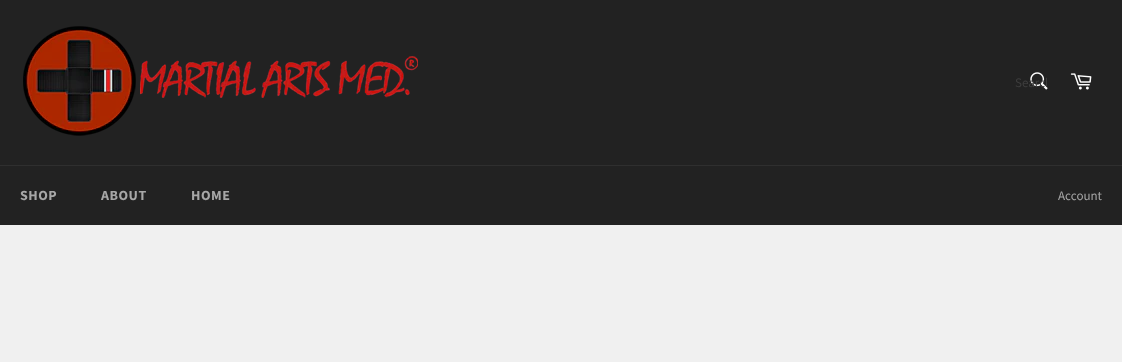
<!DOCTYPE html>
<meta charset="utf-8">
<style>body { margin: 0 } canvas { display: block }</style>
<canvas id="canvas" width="1122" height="362"></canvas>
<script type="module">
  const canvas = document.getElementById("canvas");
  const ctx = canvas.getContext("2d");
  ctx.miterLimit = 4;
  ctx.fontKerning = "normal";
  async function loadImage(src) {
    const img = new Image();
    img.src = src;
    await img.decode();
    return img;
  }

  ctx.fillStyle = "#f0f0f0";
  ctx.fillRect(0, 0, 1122, 362);
  ctx.fillStyle = "#222222";
  ctx.fillRect(0, 0, 1122, 165);
  ctx.drawImage(await loadImage("img1.png"), 23, 26, 395, 110);
  ctx.drawImage(await loadImage("img2.png"), 1030, 72, 18, 18);
  ctx.save();
  ctx.beginPath();
  ctx.rect(1015, 74, 32, 17);
  ctx.clip();
  ctx.font = "13px Source Sans Pro";
  ctx.fillStyle = "#3e3e3e";
  ctx.fillText("Search", 1015, 87);
  ctx.restore();
  ctx.drawImage(await loadImage("img3.png"), 1070, 73, 22, 17);
  ctx.fillRect(0, 166, 1122, 59);
  ctx.fillStyle = "#2f2f2f";
  ctx.fillRect(0, 165, 1122, 1);
  ctx.letterSpacing = "0.5px";
  ctx.font = "bold 14px Source Sans Pro";
  ctx.fillStyle = "#a7a7a7";
  ctx.fillText("SHOP", 20, 200);
  ctx.fillText("ABOUT", 101, 200);
  ctx.fillText("HOME", 191, 200);
  ctx.letterSpacing = "0px";
  ctx.font = "13px Source Sans Pro";
  ctx.fillText("Account", 1058, 200);
</script>
